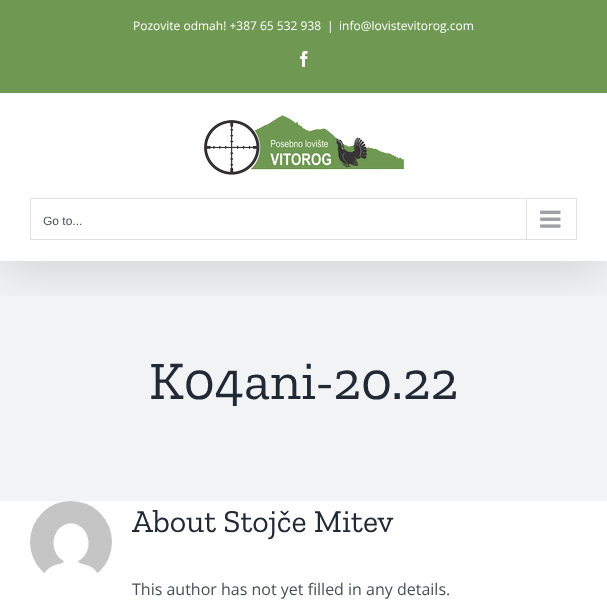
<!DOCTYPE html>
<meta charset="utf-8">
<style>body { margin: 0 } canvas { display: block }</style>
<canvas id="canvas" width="607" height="607"></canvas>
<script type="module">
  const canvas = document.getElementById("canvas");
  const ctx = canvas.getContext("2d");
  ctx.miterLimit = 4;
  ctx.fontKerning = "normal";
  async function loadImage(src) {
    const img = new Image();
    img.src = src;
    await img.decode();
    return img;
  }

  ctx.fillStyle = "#ffffff";
  ctx.fillRect(0, 0, 607, 607);
  ctx.fillStyle = "#f2f3f5";
  ctx.fillRect(0, 261, 607, 240);
  ctx.save();
  ctx.beginPath();
  ctx.rect(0, 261, 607, 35);
  ctx.clip();
  ctx.fillStyle = "rgba(0, 0, 0, 0.14)";
  ctx.filter = "blur(25px)";
  ctx.beginPath();
  ctx.rect(2, 12, 603, 257);
  ctx.fill();
  ctx.filter = "none";
  ctx.restore();
  ctx.fillStyle = "#6f9952";
  ctx.fillRect(0, 0, 607, 93);
  ctx.font = "12px Open Sans";
  ctx.fillStyle = "#ffffff";
  ctx.fillText("Pozovite odmah! +387 65 532 938", 133, 30);
  ctx.fillText("|", 327, 30);
  ctx.fillText("info@lovistevitorog.com", 339, 30);
  ctx.drawImage(await loadImage("img1.png"), 300, 51, 8, 16);
  ctx.drawImage(await loadImage("img2.png"), 203, 115, 201, 60);
  ctx.strokeStyle = "#e2e2e2";
  ctx.strokeRect(30.5, 198.5, 546, 41);
  ctx.font = "12px Liberation Sans";
  ctx.fillStyle = "#4a4e57";
  ctx.fillText("Go to...", 43, 225);
  ctx.fillStyle = "#e2e2e2";
  ctx.fillRect(526, 199, 1, 40);
  ctx.drawImage(await loadImage("img3.png"), 540, 210, 21, 18);
  ctx.font = "54px Zilla Slab";
  ctx.fillStyle = "#212934";
  ctx.fillText("K04ani-20.22", 149, 399);
  ctx.drawImage(await loadImage("img4.png"), 30, 501, 82, 72);
  ctx.font = "32px Zilla Slab";
  ctx.fillText("About Stojče Mitev", 132, 532);
  ctx.font = "16px Open Sans";
  ctx.fillStyle = "#4a4e57";
  ctx.fillText("This author has not yet filled in any details.", 132, 595);
</script>
